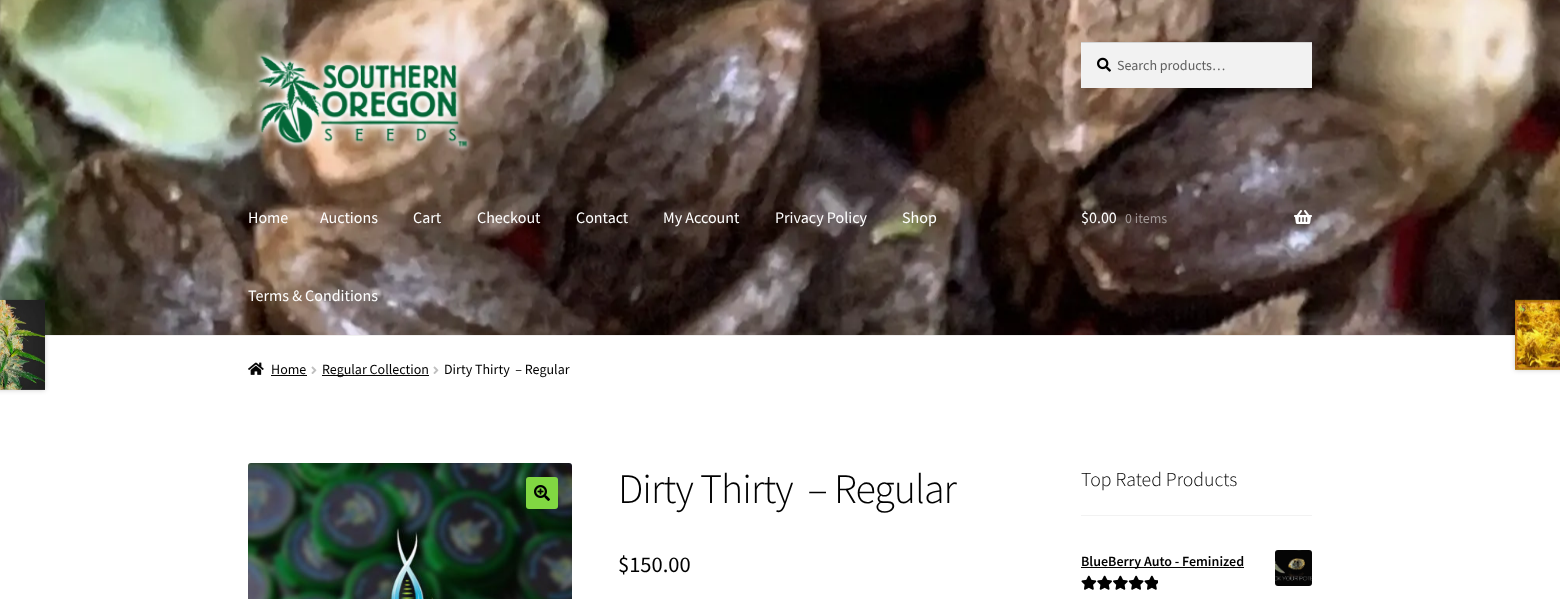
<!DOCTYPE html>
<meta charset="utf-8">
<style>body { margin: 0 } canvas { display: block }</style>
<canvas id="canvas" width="1560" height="599"></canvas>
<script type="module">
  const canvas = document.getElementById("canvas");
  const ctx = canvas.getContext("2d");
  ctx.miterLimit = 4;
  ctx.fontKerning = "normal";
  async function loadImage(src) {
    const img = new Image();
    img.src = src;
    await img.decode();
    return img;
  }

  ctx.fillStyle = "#ffffff";
  ctx.fillRect(0, 0, 1560, 599);
  ctx.drawImage(await loadImage("img1.png"), 0, 0, 1560, 335);
  ctx.fillStyle = "#f0f0f0";
  ctx.fillRect(45, 335, 1470, 1);
  ctx.drawImage(await loadImage("img2.png"), 253, 49, 221, 105);
  ctx.fillStyle = "#f2f2f2";
  ctx.fillRect(1081, 43, 231, 45);
  ctx.drawImage(await loadImage("img3.png"), 1097, 57, 14, 15);
  ctx.fillStyle = "#d4d4d4";
  ctx.fillRect(1081, 42, 231, 1);
  ctx.font = "14px Source Sans Pro";
  ctx.fillStyle = "#616161";
  ctx.fillText("Search products…", 1117, 70);
  ctx.font = "16px Source Sans Pro";
  ctx.fillStyle = "#ffffff";
  ctx.fillText("Home", 248, 223);
  ctx.fillText("Auctions", 320, 223);
  ctx.fillText("Cart", 413, 223);
  ctx.fillText("Checkout", 477, 223);
  ctx.fillText("Contact", 576, 223);
  ctx.fillText("My Account", 663, 223);
  ctx.fillText("Privacy Policy", 775, 223);
  ctx.fillText("Shop", 902, 223);
  ctx.fillText("Terms & Conditions", 248, 301);
  ctx.fillText("$0.00", 1081, 223);
  ctx.font = "14px Source Sans Pro";
  ctx.fillStyle = "#a09796";
  ctx.fillText("0 items", 1125, 223);
  ctx.drawImage(await loadImage("img4.png"), 1294, 210, 18, 14);
  ctx.drawImage(await loadImage("img5.png"), 248, 362, 16, 13);
  ctx.fillStyle = "#000000";
  ctx.fillText("Home", 271, 374);
  ctx.fillStyle = "#050505";
  ctx.fillRect(271, 375, 36, 1);
  ctx.drawImage(await loadImage("img6.png"), 311, 366, 6, 8);
  ctx.fillRect(322, 375, 107, 1);
  ctx.fillStyle = "#000000";
  ctx.fillText("Regular Collection", 322, 374);
  ctx.drawImage(await loadImage("img6.png"), 433, 366, 6, 8);
  ctx.fillText("Dirty Thirty  – Regular", 444, 374);
  ctx.fillStyle = "rgba(0, 0, 0, 0.2)";
  ctx.filter = "blur(2.5px)";
  ctx.beginPath();
  ctx.rect(-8, 300, 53, 90);
  ctx.fill();
  ctx.filter = "none";
  ctx.drawImage(await loadImage("img7.png"), 0, 299, 45, 91);
  ctx.filter = "blur(2.5px)";
  ctx.beginPath();
  ctx.rect(1515, 300, 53, 70);
  ctx.fill();
  ctx.filter = "none";
  ctx.drawImage(await loadImage("img8.png"), 1515, 299, 45, 71);
  ctx.drawImage(await loadImage("img9.png"), 248, 463, 324, 136);
  ctx.fillStyle = "#81d742";
  ctx.beginPath();
  ctx.roundRect(526, 477, 32, 32, 3);
  ctx.fill();
  ctx.drawImage(await loadImage("img10.png"), 534, 485, 16, 16);
  ctx.letterSpacing = "-1px";
  ctx.font = "300 42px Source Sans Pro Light";
  ctx.fillStyle = "#000000";
  ctx.fillText("Dirty Thirty  – Regular", 618, 503);
  ctx.letterSpacing = "0px";
  ctx.font = "22.5px Source Sans Pro";
  ctx.fillText("$150.00", 618, 572);
  ctx.fillStyle = "#f2f2f2";
  ctx.fillRect(1081, 515, 231, 1);
  ctx.font = "300 19.75px Source Sans Pro Light";
  ctx.fillStyle = "#000000";
  ctx.fillText("Top Rated Products", 1081, 486);
  ctx.fillStyle = "#050505";
  ctx.fillRect(1081, 567, 163, 1);
  ctx.font = "600 14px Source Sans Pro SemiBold";
  ctx.fillStyle = "#000000";
  ctx.fillText("BlueBerry Auto - Feminized", 1081, 566);
  ctx.drawImage(await loadImage("img11.png"), 1275, 550, 37, 36);
  ctx.drawImage(await loadImage("img12.png"), 1081, 575, 77, 15);
  ctx.drawImage(await loadImage("img13.png"), 1081, 575, 77, 15);
</script>
